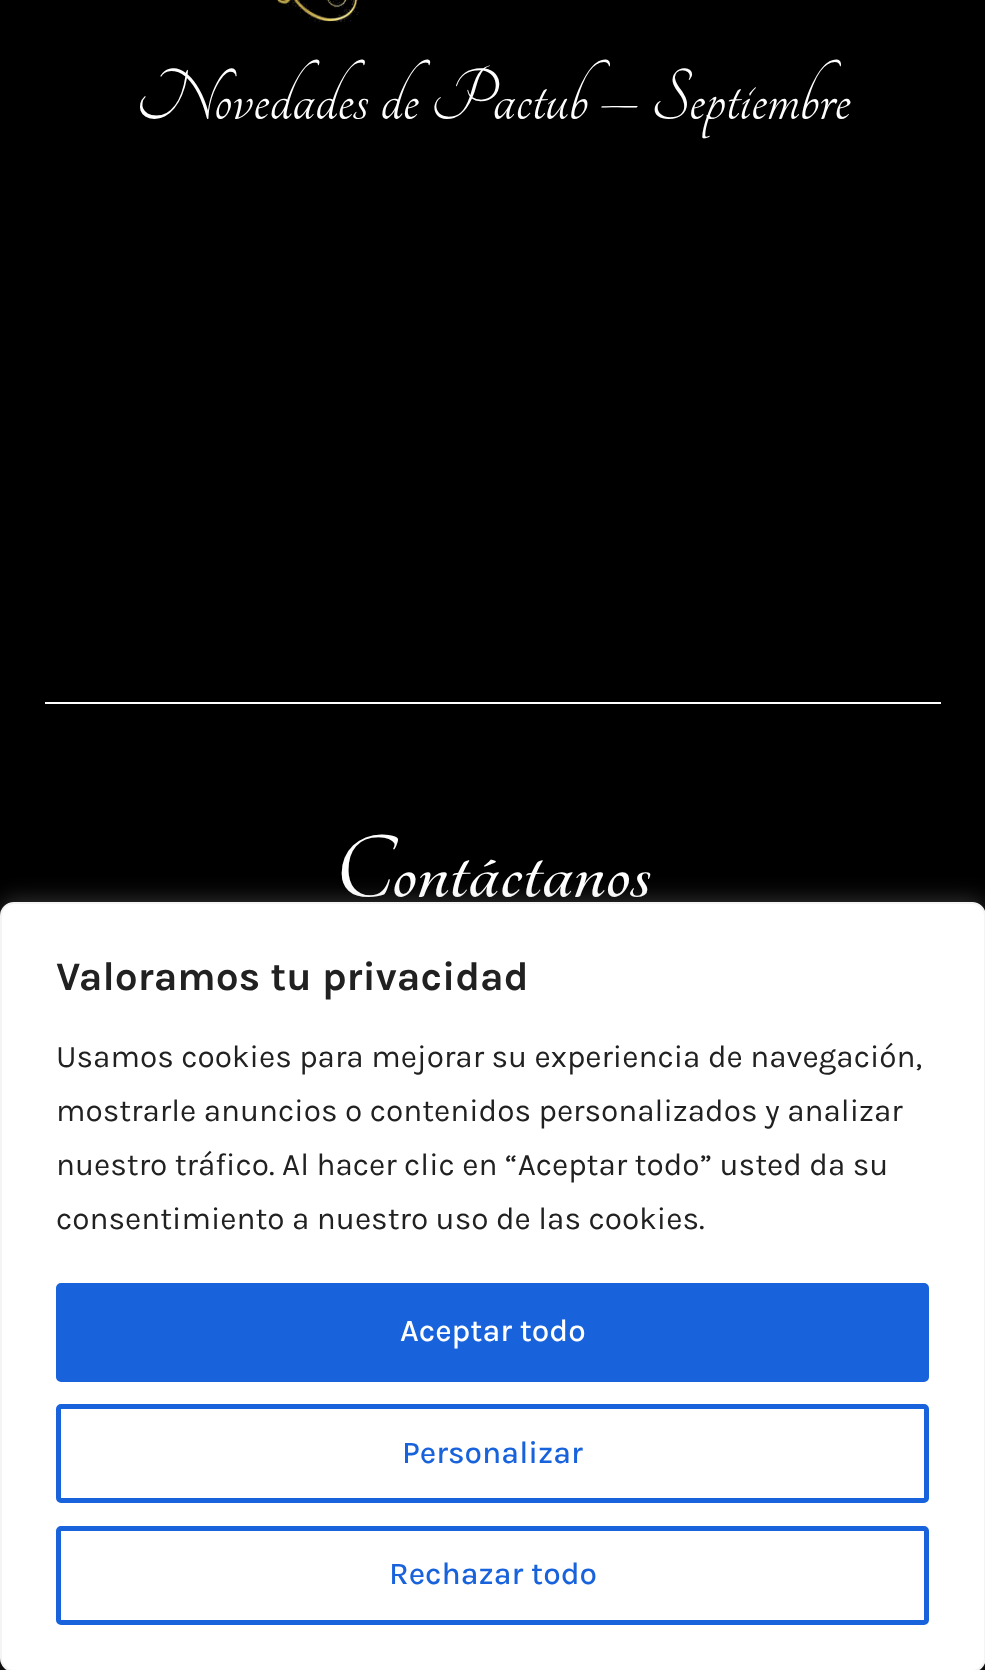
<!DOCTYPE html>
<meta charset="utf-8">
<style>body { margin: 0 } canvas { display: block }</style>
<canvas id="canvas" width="985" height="1670"></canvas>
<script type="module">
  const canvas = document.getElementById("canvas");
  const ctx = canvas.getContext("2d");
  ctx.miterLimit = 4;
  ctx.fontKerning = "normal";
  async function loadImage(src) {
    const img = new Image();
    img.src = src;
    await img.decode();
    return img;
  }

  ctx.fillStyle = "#000000";
  ctx.fillRect(0, 0, 985, 1670);
  ctx.drawImage(await loadImage("img1.png"), 276, 0, 83, 22);
  ctx.font = "78.75px Tangerine";
  ctx.fillStyle = "#ffffff";
  ctx.fillText("Novedades de Pactub – Septiembre", 136, 119);
  ctx.fillRect(45, 702, 896, 2);
  ctx.letterSpacing = "0.5px";
  ctx.font = "bold 97px Tangerine";
  ctx.fillText("Contáctanos", 335, 897);
  ctx.fillStyle = "rgba(172, 171, 171, 0.3)";
  ctx.filter = "blur(11px)";
  ctx.beginPath();
  ctx.roundRect(0, 900, 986, 770, 14);
  ctx.fill();
  ctx.filter = "none";
  ctx.fillStyle = "#ffffff";
  ctx.beginPath();
  ctx.roundRect(1, 903, 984, 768, 13);
  ctx.fill();
  ctx.strokeStyle = "#f4f4f4";
  ctx.lineWidth = 2;
  ctx.stroke();
  ctx.letterSpacing = "0px";
  ctx.font = "bold 40.5px Karla";
  ctx.fillStyle = "#212121";
  ctx.fillText("Valoramos tu privacidad", 56, 990);
  ctx.font = "31.5px Karla";
  ctx.fillText("Usamos cookies para mejorar su experiencia de navegación,", 56, 1067);
  ctx.fillText("mostrarle anuncios o contenidos personalizados y analizar", 56, 1121);
  ctx.fillText("nuestro tráfico. Al hacer clic en “Aceptar todo” usted da su", 56, 1175);
  ctx.fillText("consentimiento a nuestro uso de las cookies.", 56, 1229);
  ctx.fillStyle = "#1863dc";
  ctx.beginPath();
  ctx.roundRect(58.5, 1285.5, 868, 94, 2.5);
  ctx.fill();
  ctx.strokeStyle = "#1863dc";
  ctx.lineWidth = 5;
  ctx.stroke();
  ctx.font = "500 31.5px Karla";
  ctx.fillStyle = "#ffffff";
  ctx.fillText("Aceptar todo", 400, 1341);
  ctx.beginPath();
  ctx.roundRect(58.5, 1406.5, 868, 94, 2.5);
  ctx.stroke();
  ctx.fillStyle = "#1863dc";
  ctx.fillText("Personalizar", 402, 1463);
  ctx.beginPath();
  ctx.roundRect(58.5, 1528.5, 868, 94, 2.5);
  ctx.stroke();
  ctx.fillText("Rechazar todo", 389, 1584);
</script>
